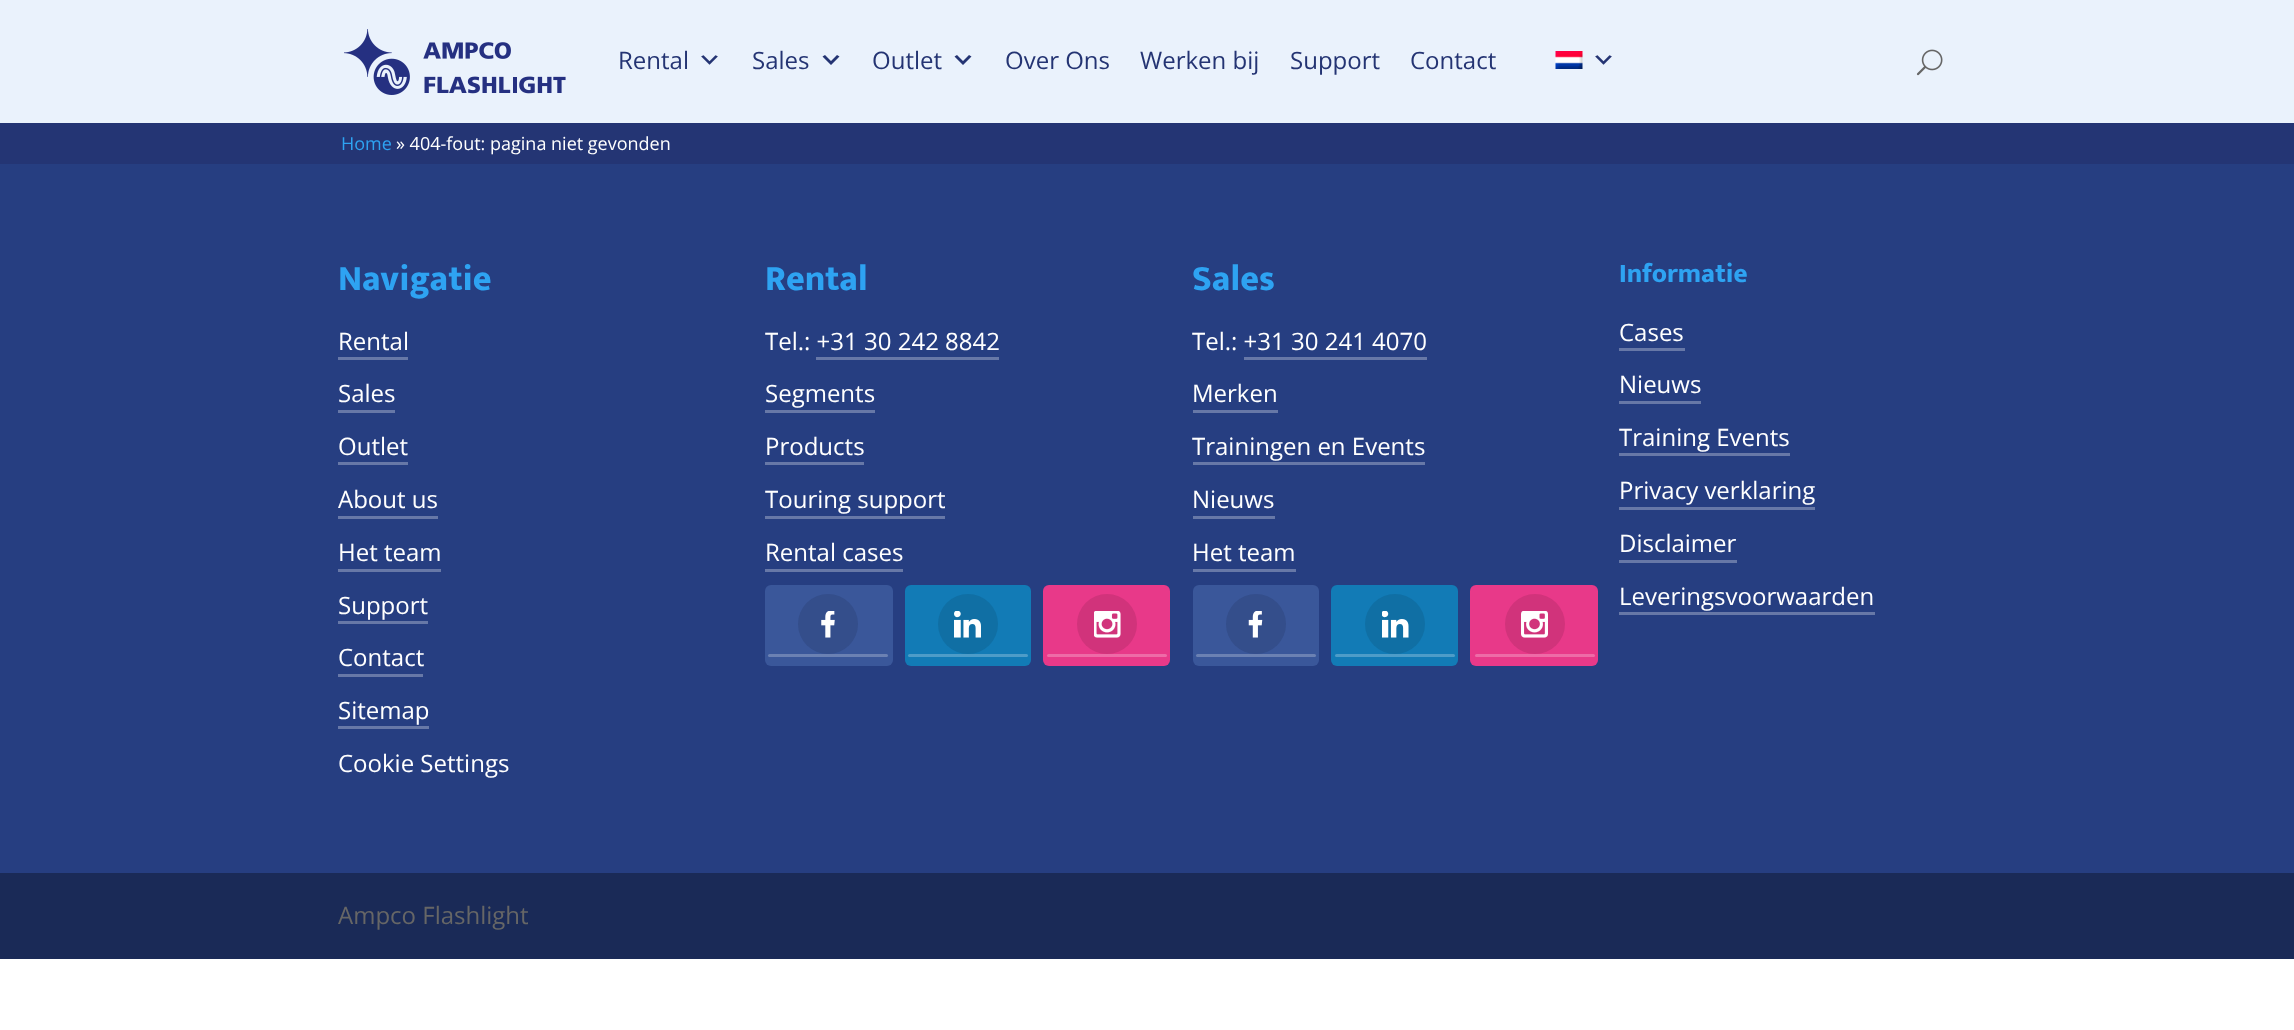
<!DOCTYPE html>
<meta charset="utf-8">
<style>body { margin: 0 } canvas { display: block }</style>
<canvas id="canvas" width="2294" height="1030"></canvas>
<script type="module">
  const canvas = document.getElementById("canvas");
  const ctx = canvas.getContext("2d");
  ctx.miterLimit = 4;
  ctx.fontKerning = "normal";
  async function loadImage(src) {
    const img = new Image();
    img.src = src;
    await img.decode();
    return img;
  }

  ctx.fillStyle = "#ffffff";
  ctx.fillRect(0, 0, 2294, 1030);
  ctx.fillStyle = "#eaf2fc";
  ctx.fillRect(0, 0, 2294, 123);
  ctx.drawImage(await loadImage("img1.png"), 344, 29, 222, 66);
  ctx.font = "24px Open Sans";
  ctx.fillStyle = "#243473";
  ctx.fillText("Rental", 618, 69);
  ctx.drawImage(await loadImage("img2.png"), 701, 55, 17, 10);
  ctx.fillText("Sales", 752, 69);
  ctx.beginPath();
  ctx.moveTo(825, 55);
  ctx.lineTo(831, 61);
  ctx.lineTo(837, 55);
  ctx.lineTo(839.5, 56.5);
  ctx.lineTo(831, 65);
  ctx.lineTo(822.5, 56.5);
  ctx.closePath();
  ctx.fill();
  ctx.fillText("Outlet", 872, 69);
  ctx.beginPath();
  ctx.moveTo(957, 55);
  ctx.lineTo(963, 61);
  ctx.lineTo(969, 55);
  ctx.lineTo(971.5, 56.5);
  ctx.lineTo(963, 65);
  ctx.lineTo(954.5, 56.5);
  ctx.closePath();
  ctx.fill();
  ctx.fillText("Over Ons", 1005, 69);
  ctx.fillText("Werken bij", 1140, 69);
  ctx.fillText("Support", 1290, 69);
  ctx.fillText("Contact", 1410, 69);
  ctx.drawImage(await loadImage("img3.png"), 1555, 51, 28, 18);
  ctx.drawImage(await loadImage("img2.png"), 1595, 55, 17, 10);
  ctx.drawImage(await loadImage("img4.png"), 1916, 49, 27, 27);
  ctx.fillStyle = "#243574";
  ctx.fillRect(0, 123, 2294, 41);
  ctx.font = "18px Open Sans";
  ctx.fillStyle = "#2ea3f2";
  ctx.fillText("Home", 341, 150);
  ctx.fillStyle = "#ffffff";
  ctx.fillText("» 404-fout: pagina niet gevonden", 396, 150);
  ctx.fillStyle = "#263e81";
  ctx.fillRect(0, 164, 2294, 709);
  ctx.font = "800 36px Mukta";
  ctx.fillStyle = "#2ea3f2";
  ctx.fillText("Navigatie", 338, 290);
  ctx.font = "24px Open Sans";
  ctx.fillStyle = "#ffffff";
  ctx.fillText("Rental", 338, 350);
  ctx.fillStyle = "#6778a7";
  ctx.fillRect(338, 357, 70, 3);
  ctx.fillStyle = "#ffffff";
  ctx.fillText("Sales", 338, 402);
  ctx.fillStyle = "#6778a7";
  ctx.fillRect(338, 410, 57, 3);
  ctx.fillStyle = "#ffffff";
  ctx.fillText("Outlet", 338, 455);
  ctx.fillStyle = "#6778a7";
  ctx.fillRect(338, 462, 70, 3);
  ctx.fillStyle = "#ffffff";
  ctx.fillText("About us", 338, 508);
  ctx.fillStyle = "#6778a7";
  ctx.fillRect(338, 516, 100, 3);
  ctx.fillStyle = "#ffffff";
  ctx.fillText("Het team", 338, 561);
  ctx.fillStyle = "#6778a7";
  ctx.fillRect(338, 569, 103, 3);
  ctx.fillStyle = "#ffffff";
  ctx.fillText("Support", 338, 614);
  ctx.fillStyle = "#6778a7";
  ctx.fillRect(338, 621, 90, 3);
  ctx.fillStyle = "#ffffff";
  ctx.fillText("Contact", 338, 666);
  ctx.fillStyle = "#6778a7";
  ctx.fillRect(338, 674, 85, 3);
  ctx.fillStyle = "#ffffff";
  ctx.fillText("Sitemap", 338, 719);
  ctx.fillStyle = "#6778a7";
  ctx.fillRect(338, 726, 91, 3);
  ctx.fillStyle = "#ffffff";
  ctx.fillText("Cookie Settings", 338, 772);
  ctx.font = "800 36px Mukta";
  ctx.fillStyle = "#2ea3f2";
  ctx.fillText("Rental", 765, 290);
  ctx.font = "24px Open Sans";
  ctx.fillStyle = "#ffffff";
  ctx.fillText("Tel.: +31 30 242 8842", 765, 350);
  ctx.fillStyle = "#6778a7";
  ctx.fillRect(816, 357, 183, 3);
  ctx.fillStyle = "#ffffff";
  ctx.fillText("Segments", 765, 402);
  ctx.fillStyle = "#6778a7";
  ctx.fillRect(765, 410, 110, 3);
  ctx.fillStyle = "#ffffff";
  ctx.fillText("Products", 765, 455);
  ctx.fillStyle = "#6778a7";
  ctx.fillRect(765, 462, 99, 3);
  ctx.fillStyle = "#ffffff";
  ctx.fillText("Touring support", 765, 508);
  ctx.fillStyle = "#6778a7";
  ctx.fillRect(765, 516, 180, 3);
  ctx.fillStyle = "#ffffff";
  ctx.fillText("Rental cases", 765, 561);
  ctx.fillStyle = "#6778a7";
  ctx.fillRect(765, 569, 138, 3);
  ctx.fillStyle = "#3a579a";
  ctx.beginPath();
  ctx.roundRect(765, 585, 128, 81, 6);
  ctx.fill();
  ctx.fillStyle = "#344e8b";
  ctx.beginPath();
  ctx.arc(828, 624, 30, 0, Math.PI * 2);
  ctx.fill();
  ctx.drawImage(await loadImage("img5.png"), 821, 611, 14, 27);
  ctx.fillStyle = "#6b81b3";
  ctx.beginPath();
  ctx.roundRect(768, 654, 120, 3, 1.5);
  ctx.fill();
  ctx.fillStyle = "#127bb6";
  ctx.beginPath();
  ctx.roundRect(905, 585, 126, 81, 6);
  ctx.fill();
  ctx.fillStyle = "#106fa4";
  ctx.beginPath();
  ctx.arc(968, 624, 30, 0, Math.PI * 2);
  ctx.fill();
  ctx.drawImage(await loadImage("img6.png"), 954, 611, 27, 27);
  ctx.fillStyle = "#4d9cc8";
  ctx.beginPath();
  ctx.roundRect(908, 654, 120, 3, 1.5);
  ctx.fill();
  ctx.fillStyle = "#e83989";
  ctx.beginPath();
  ctx.roundRect(1043, 585, 127, 81, 6);
  ctx.fill();
  ctx.fillStyle = "#d1337b";
  ctx.beginPath();
  ctx.arc(1107, 624, 30, 0, Math.PI * 2);
  ctx.fill();
  ctx.drawImage(await loadImage("img7.png"), 1094, 611, 27, 27);
  ctx.fillStyle = "#ee6ba7";
  ctx.beginPath();
  ctx.roundRect(1047, 654, 120, 3, 1.5);
  ctx.fill();
  ctx.font = "800 36px Mukta";
  ctx.fillStyle = "#2ea3f2";
  ctx.fillText("Sales", 1192, 290);
  ctx.font = "24px Open Sans";
  ctx.fillStyle = "#ffffff";
  ctx.fillText("Tel.: +31 30 241 4070", 1192, 350);
  ctx.fillStyle = "#6778a7";
  ctx.fillRect(1244, 357, 183, 3);
  ctx.fillStyle = "#ffffff";
  ctx.fillText("Merken", 1192, 402);
  ctx.fillStyle = "#6778a7";
  ctx.fillRect(1193, 410, 85, 3);
  ctx.fillStyle = "#ffffff";
  ctx.fillText("Trainingen en Events", 1192, 455);
  ctx.fillStyle = "#6778a7";
  ctx.fillRect(1193, 462, 232, 3);
  ctx.fillStyle = "#ffffff";
  ctx.fillText("Nieuws", 1192, 508);
  ctx.fillStyle = "#6778a7";
  ctx.fillRect(1193, 516, 82, 3);
  ctx.fillStyle = "#ffffff";
  ctx.fillText("Het team", 1192, 561);
  ctx.fillStyle = "#6778a7";
  ctx.fillRect(1193, 569, 103, 3);
  ctx.fillStyle = "#3a579a";
  ctx.beginPath();
  ctx.roundRect(1193, 585, 126, 81, 6);
  ctx.fill();
  ctx.fillStyle = "#344e8b";
  ctx.beginPath();
  ctx.arc(1256, 624, 30, 0, Math.PI * 2);
  ctx.fill();
  ctx.drawImage(await loadImage("img8.png"), 1248, 611, 15, 27);
  ctx.fillStyle = "#6b81b3";
  ctx.beginPath();
  ctx.roundRect(1196, 654, 120, 3, 1.5);
  ctx.fill();
  ctx.fillStyle = "#127bb6";
  ctx.beginPath();
  ctx.roundRect(1331, 585, 127, 81, 6);
  ctx.fill();
  ctx.fillStyle = "#106fa4";
  ctx.beginPath();
  ctx.arc(1395, 624, 30, 0, Math.PI * 2);
  ctx.fill();
  ctx.drawImage(await loadImage("img9.png"), 1382, 611, 27, 27);
  ctx.fillStyle = "#4d9cc8";
  ctx.beginPath();
  ctx.roundRect(1335, 654, 120, 3, 1.5);
  ctx.fill();
  ctx.fillStyle = "#e83989";
  ctx.beginPath();
  ctx.roundRect(1470, 585, 128, 81, 6);
  ctx.fill();
  ctx.fillStyle = "#d1337b";
  ctx.beginPath();
  ctx.arc(1535, 624, 30, 0, Math.PI * 2);
  ctx.fill();
  ctx.drawImage(await loadImage("img10.png"), 1521, 611, 27, 27);
  ctx.fillStyle = "#ee6ba7";
  ctx.beginPath();
  ctx.roundRect(1475, 654, 120, 3, 1.5);
  ctx.fill();
  ctx.font = "800 27px Mukta";
  ctx.fillStyle = "#2ea3f2";
  ctx.fillText("Informatie", 1619, 282);
  ctx.font = "24px Open Sans";
  ctx.fillStyle = "#ffffff";
  ctx.fillText("Cases", 1619, 341);
  ctx.fillStyle = "#6778a7";
  ctx.fillRect(1619, 348, 66, 3);
  ctx.fillStyle = "#ffffff";
  ctx.fillText("Nieuws", 1619, 393);
  ctx.fillStyle = "#6778a7";
  ctx.fillRect(1619, 401, 82, 3);
  ctx.fillStyle = "#ffffff";
  ctx.fillText("Training Events", 1619, 446);
  ctx.fillStyle = "#6778a7";
  ctx.fillRect(1619, 453, 171, 3);
  ctx.fillStyle = "#ffffff";
  ctx.fillText("Privacy verklaring", 1619, 499);
  ctx.fillStyle = "#6778a7";
  ctx.fillRect(1619, 507, 196, 3);
  ctx.fillStyle = "#ffffff";
  ctx.fillText("Disclaimer", 1619, 552);
  ctx.fillStyle = "#6778a7";
  ctx.fillRect(1619, 560, 118, 3);
  ctx.fillStyle = "#ffffff";
  ctx.fillText("Leveringsvoorwaarden", 1619, 605);
  ctx.fillStyle = "#6778a7";
  ctx.fillRect(1619, 612, 256, 3);
  ctx.fillStyle = "#1a2a57";
  ctx.fillRect(0, 873, 2294, 86);
  ctx.fillStyle = "#666666";
  ctx.fillText("Ampco Flashlight", 338, 924);
</script>
